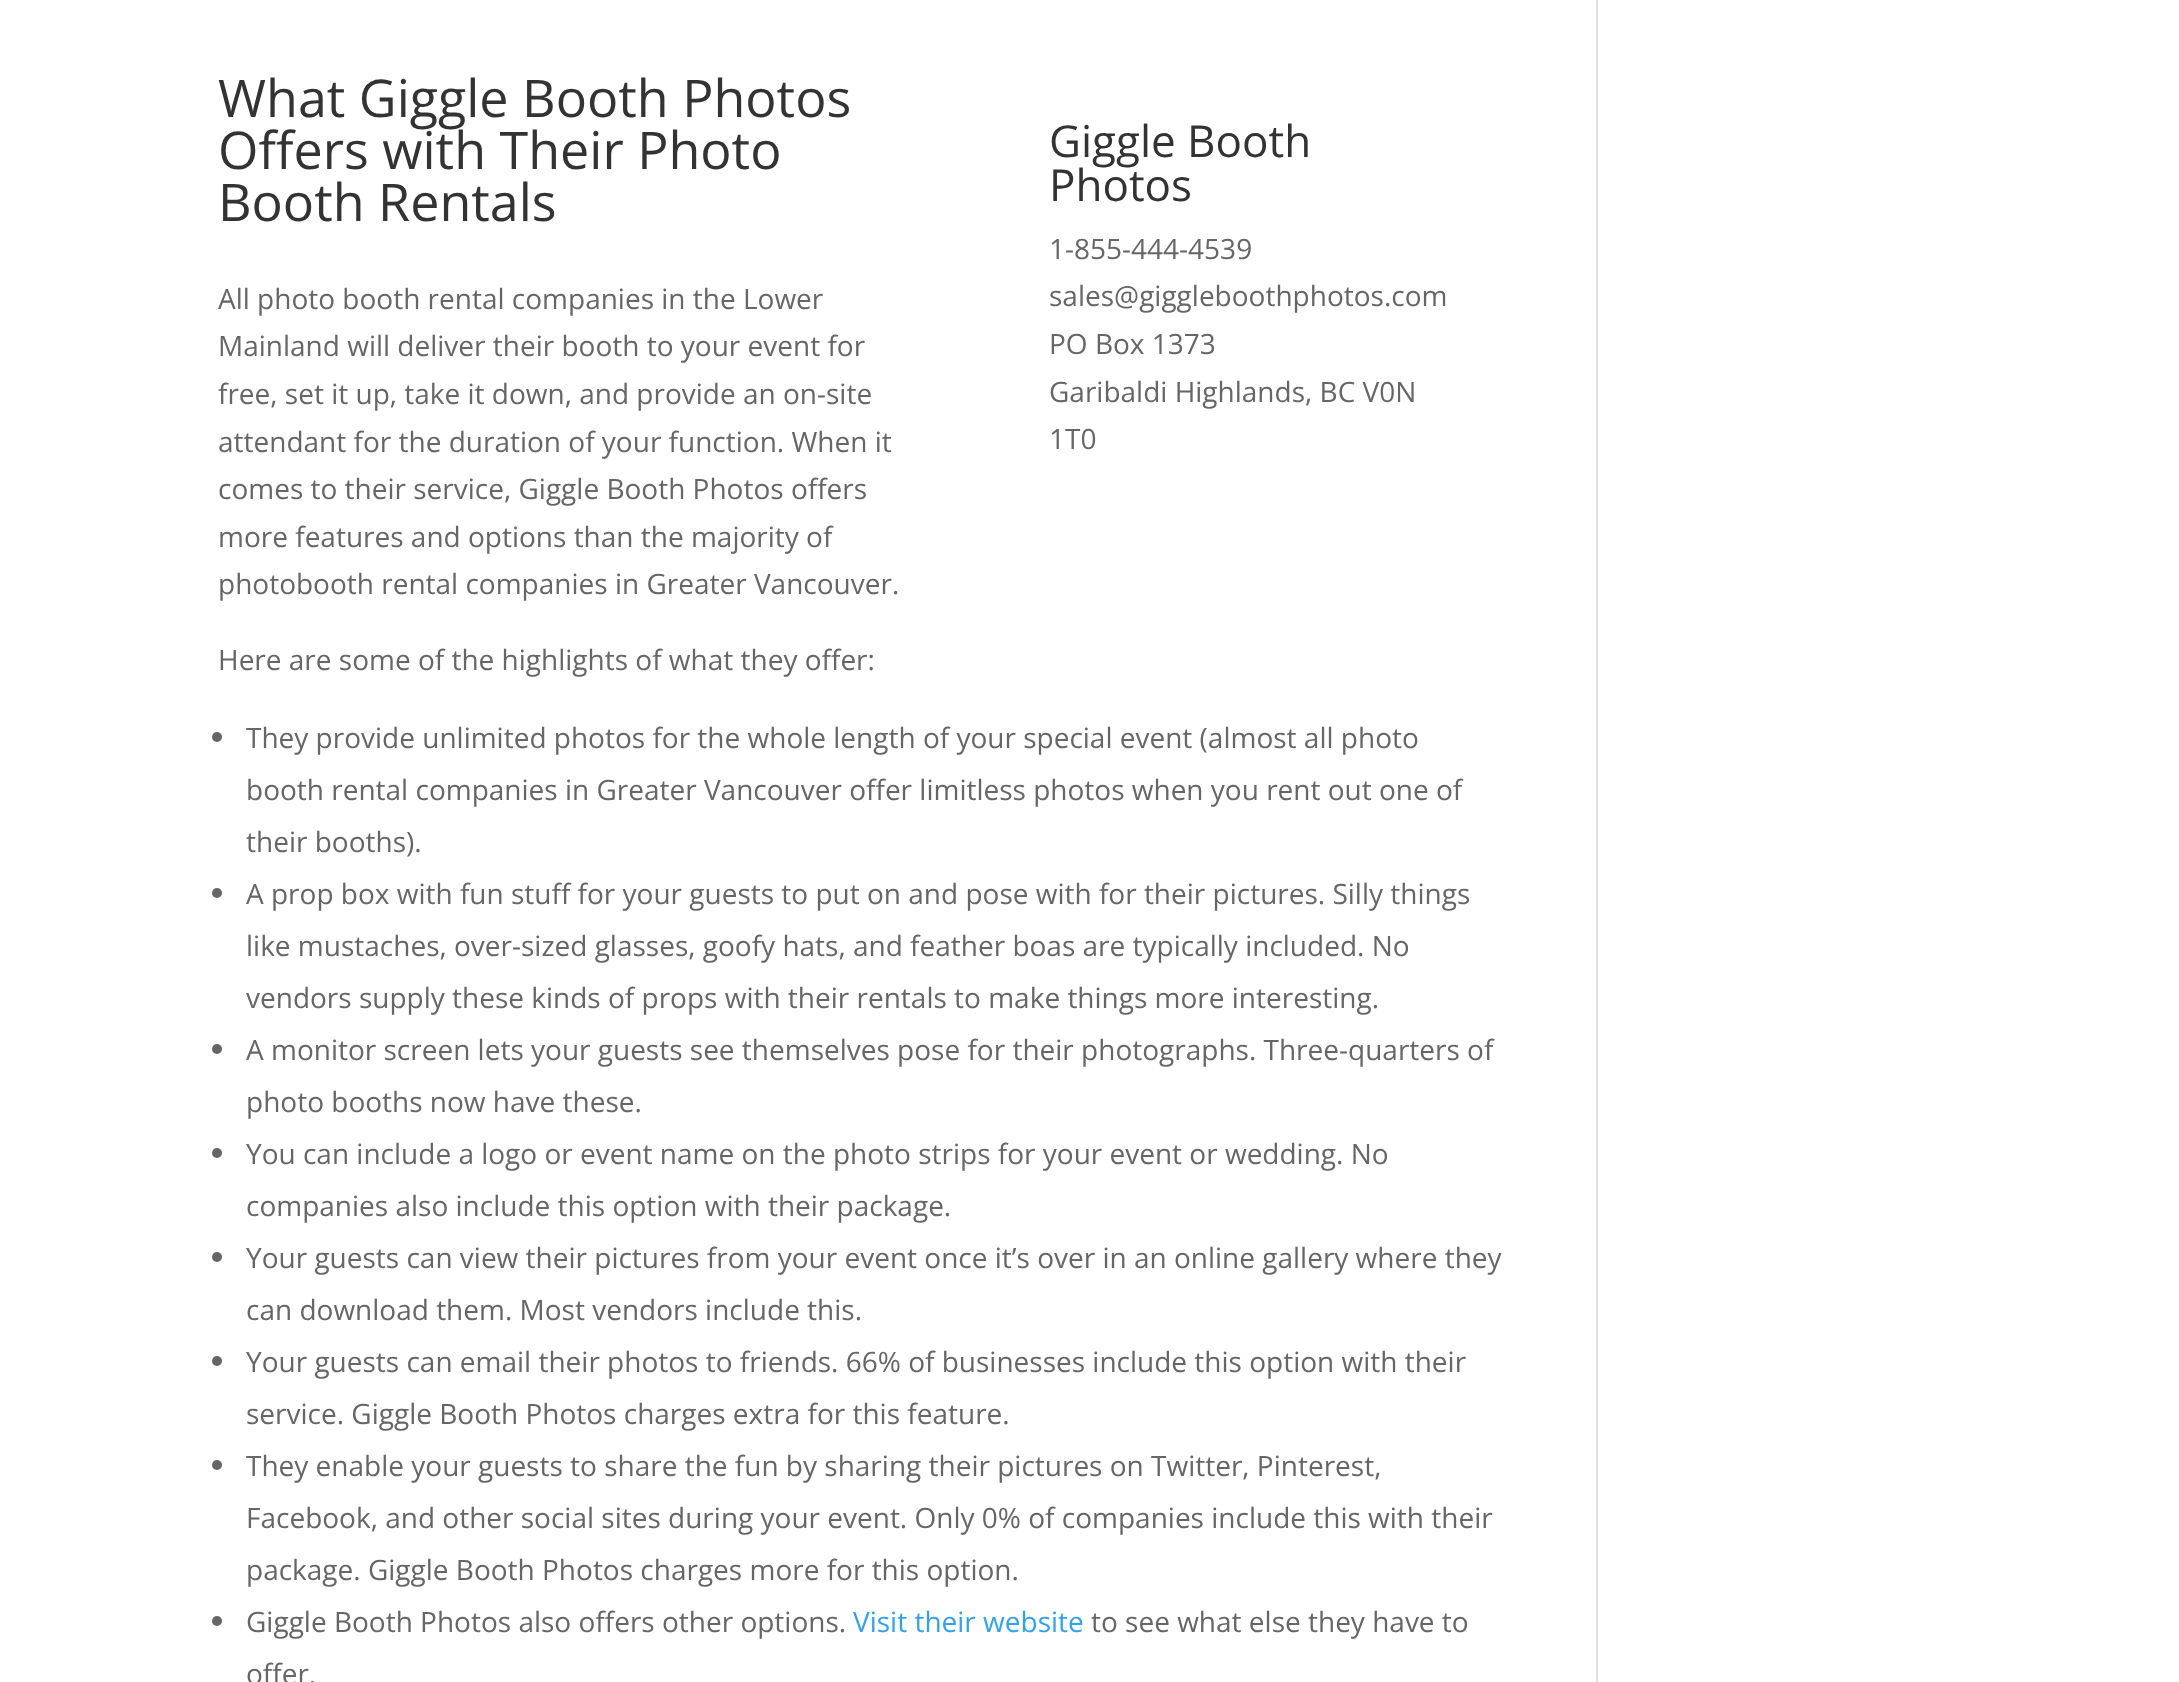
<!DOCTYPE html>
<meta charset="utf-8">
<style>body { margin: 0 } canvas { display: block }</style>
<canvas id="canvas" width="2179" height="1682"></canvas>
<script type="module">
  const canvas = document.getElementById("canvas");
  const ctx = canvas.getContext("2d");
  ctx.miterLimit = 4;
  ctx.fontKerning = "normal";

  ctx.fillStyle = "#ffffff";
  ctx.fillRect(0, 0, 2179, 1682);
  ctx.font = "52px Open Sans";
  ctx.fillStyle = "#333333";
  ctx.fillText("What Giggle Booth Photos", 218, 117);
  ctx.fillText("Offers with Their Photo", 218, 169);
  ctx.fillText("Booth Rentals", 218, 221);
  ctx.font = "44px Open Sans";
  ctx.fillText("Giggle Booth", 1049, 157);
  ctx.fillText("Photos", 1049, 201);
  ctx.font = "28px Open Sans";
  ctx.fillStyle = "#666666";
  ctx.fillText("1-855-444-4539", 1049, 259);
  ctx.fillText("sales@giggleboothphotos.com", 1049, 306);
  ctx.fillText("PO Box 1373", 1049, 354);
  ctx.fillText("Garibaldi Highlands, BC V0N", 1049, 402);
  ctx.fillText("1T0", 1049, 449);
  ctx.fillText("All photo booth rental companies in the Lower", 218, 309);
  ctx.fillText("Mainland will deliver their booth to your event for", 218, 356);
  ctx.fillText("free, set it up, take it down, and provide an on-site", 218, 404);
  ctx.fillText("attendant for the duration of your function. When it", 218, 452);
  ctx.fillText("comes to their service, Giggle Booth Photos offers", 218, 499);
  ctx.fillText("more features and options than the majority of", 218, 547);
  ctx.fillText("photobooth rental companies in Greater Vancouver.", 218, 594);
  ctx.fillText("Here are some of the highlights of what they offer:", 218, 670);
  ctx.beginPath();
  ctx.arc(217, 737, 5, 0, Math.PI * 2);
  ctx.fill();
  ctx.fillText("They provide unlimited photos for the whole length of your special event (almost all photo", 246, 748);
  ctx.fillText("booth rental companies in Greater Vancouver offer limitless photos when you rent out one of", 246, 800);
  ctx.fillText("their booths).", 246, 852);
  ctx.beginPath();
  ctx.arc(217, 893, 5, 0, Math.PI * 2);
  ctx.fill();
  ctx.fillText("A prop box with fun stuff for your guests to put on and pose with for their pictures. Silly things", 246, 904);
  ctx.fillText("like mustaches, over-sized glasses, goofy hats, and feather boas are typically included. No", 246, 956);
  ctx.fillText("vendors supply these kinds of props with their rentals to make things more interesting.", 246, 1008);
  ctx.beginPath();
  ctx.arc(217, 1049, 5, 0, Math.PI * 2);
  ctx.fill();
  ctx.fillText("A monitor screen lets your guests see themselves pose for their photographs. Three-quarters of", 246, 1060);
  ctx.fillText("photo booths now have these.", 246, 1112);
  ctx.beginPath();
  ctx.arc(217, 1153, 5, 0, Math.PI * 2);
  ctx.fill();
  ctx.fillText("You can include a logo or event name on the photo strips for your event or wedding. No", 246, 1164);
  ctx.fillText("companies also include this option with their package.", 246, 1216);
  ctx.beginPath();
  ctx.arc(217, 1257, 5, 0, Math.PI * 2);
  ctx.fill();
  ctx.fillText("Your guests can view their pictures from your event once it’s over in an online gallery where they", 246, 1268);
  ctx.fillText("can download them. Most vendors include this.", 246, 1320);
  ctx.beginPath();
  ctx.arc(217, 1361, 5, 0, Math.PI * 2);
  ctx.fill();
  ctx.fillText("Your guests can email their photos to friends. 66% of businesses include this option with their", 246, 1372);
  ctx.fillText("service. Giggle Booth Photos charges extra for this feature.", 246, 1424);
  ctx.beginPath();
  ctx.arc(217, 1465, 5, 0, Math.PI * 2);
  ctx.fill();
  ctx.fillText("They enable your guests to share the fun by sharing their pictures on Twitter, Pinterest,", 246, 1476);
  ctx.fillText("Facebook, and other social sites during your event. Only 0% of companies include this with their", 246, 1528);
  ctx.fillText("package. Giggle Booth Photos charges more for this option.", 246, 1580);
  ctx.beginPath();
  ctx.arc(217, 1621, 5, 0, Math.PI * 2);
  ctx.fill();
  ctx.fillText("Giggle Booth Photos also offers other options.", 246, 1632);
  ctx.fillStyle = "#2ea3f2";
  ctx.fillText("Visit their website", 853, 1632);
  ctx.fillStyle = "#666666";
  ctx.fillText("to see what else they have to", 1091, 1632);
  ctx.fillText("offer.", 246, 1684);
  ctx.fillStyle = "#e2e2e2";
  ctx.fillRect(1596, 0, 2, 1682);
</script>
